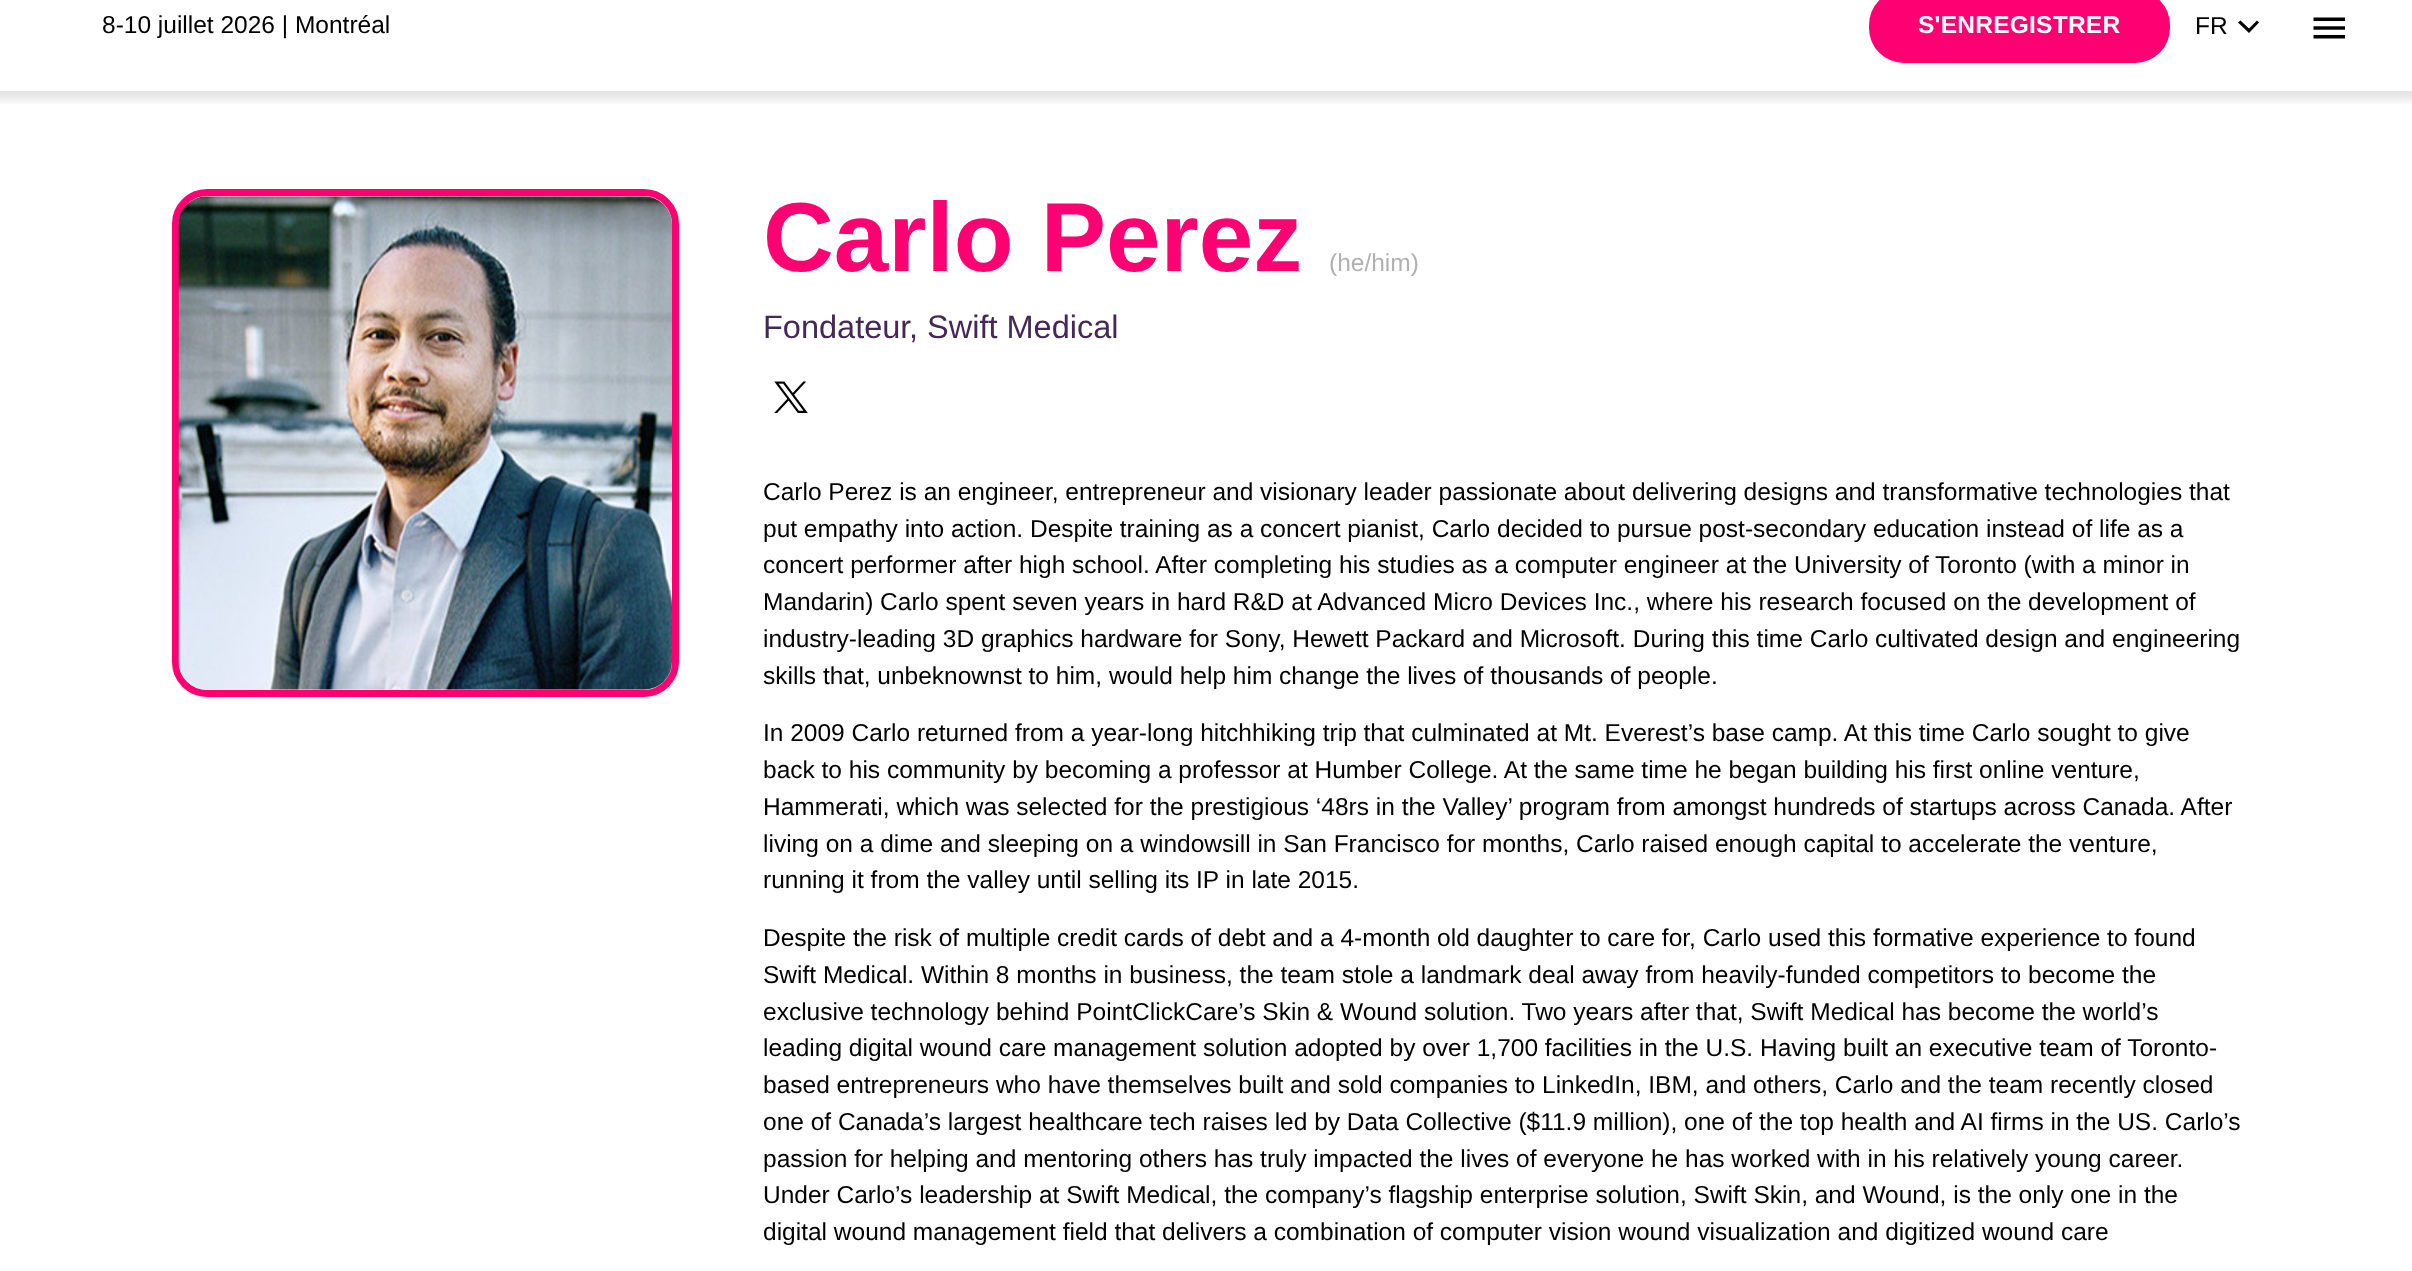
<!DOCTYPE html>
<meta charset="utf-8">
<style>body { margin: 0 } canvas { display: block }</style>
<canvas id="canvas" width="2412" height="1271"></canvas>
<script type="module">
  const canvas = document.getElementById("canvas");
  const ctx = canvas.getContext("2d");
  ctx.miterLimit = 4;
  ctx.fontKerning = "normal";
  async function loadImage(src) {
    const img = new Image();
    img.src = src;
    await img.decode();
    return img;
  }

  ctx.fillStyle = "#ffffff";
  ctx.fillRect(0, 0, 2412, 1271);
  ctx.save();
  ctx.beginPath();
  ctx.rect(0, 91, 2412, 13);
  ctx.clip();
  ctx.fillStyle = "rgba(0, 0, 0, 0.1)";
  ctx.filter = "blur(4.5px)";
  ctx.beginPath();
  ctx.rect(-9, -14, 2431, 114);
  ctx.fill();
  ctx.filter = "none";
  ctx.restore();
  ctx.font = "24.5px Liberation Sans";
  ctx.fillStyle = "#000000";
  ctx.fillText("8-10 juillet 2026 | Montréal", 102, 33);
  ctx.fillStyle = "#ff0073";
  ctx.beginPath();
  ctx.roundRect(1869, -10, 301, 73, 35);
  ctx.fill();
  ctx.letterSpacing = "0.25px";
  ctx.font = "bold 24.5px Liberation Sans";
  ctx.fillStyle = "#ffffff";
  ctx.fillText("S'ENREGISTRER", 1918, 33);
  ctx.letterSpacing = "0px";
  ctx.font = "24.5px Liberation Sans";
  ctx.fillStyle = "#000000";
  ctx.fillText("FR", 2195, 34);
  ctx.beginPath();
  ctx.moveTo(2240.5, 20.5);
  ctx.lineTo(2249, 28.5);
  ctx.lineTo(2257, 20.5);
  ctx.lineTo(2259, 22.5);
  ctx.lineTo(2249, 33);
  ctx.lineTo(2238, 22.5);
  ctx.closePath();
  ctx.fill();
  ctx.drawImage(await loadImage("img1.png"), 2313, 17, 32, 22);
  ctx.beginPath();
  ctx.roundRect(175.5, 192.5, 500, 501, 31.5);
  ctx.strokeStyle = "#ff0073";
  ctx.lineWidth = 7;
  ctx.stroke();
  ctx.drawImage(await loadImage("img2.png"), 178, 196, 494, 494);
  ctx.font = "bold 98px Liberation Sans";
  ctx.fillStyle = "#ff0073";
  ctx.fillText("Carlo Perez", 763, 271);
  ctx.font = "24.5px Liberation Sans";
  ctx.fillStyle = "#b1b1b1";
  ctx.fillText("(he/him)", 1329, 271);
  ctx.font = "32.5px Liberation Sans";
  ctx.fillStyle = "#442857";
  ctx.fillText("Fondateur", 763, 338);
  ctx.fillText(", Swift Medical", 909, 338);
  ctx.drawImage(await loadImage("img3.png"), 774, 381, 34, 32);
  ctx.font = "24.5px Liberation Sans";
  ctx.fillStyle = "#000000";
  ctx.fillText("Carlo Perez is an engineer, entrepreneur and visionary leader passionate about delivering designs and transformative technologies that", 763, 500);
  ctx.fillText("put empathy into action. Despite training as a concert pianist, Carlo decided to pursue post-secondary education instead of life as a", 763, 537);
  ctx.fillText("concert performer after high school. After completing his studies as a computer engineer at the University of Toronto (with a minor in", 763, 573);
  ctx.fillText("Mandarin) Carlo spent seven years in hard R&D at Advanced Micro Devices Inc., where his research focused on the development of", 763, 610);
  ctx.fillText("industry-leading 3D graphics hardware for Sony, Hewett Packard and Microsoft. During this time Carlo cultivated design and engineering", 763, 647);
  ctx.fillText("skills that, unbeknownst to him, would help him change the lives of thousands of people.", 763, 684);
  ctx.fillText("In 2009 Carlo returned from a year-long hitchhiking trip that culminated at Mt. Everest’s base camp. At this time Carlo sought to give", 763, 741);
  ctx.fillText("back to his community by becoming a professor at Humber College. At the same time he began building his first online venture,", 763, 778);
  ctx.fillText("Hammerati, which was selected for the prestigious ‘48rs in the Valley’ program from amongst hundreds of startups across Canada. After", 763, 815);
  ctx.fillText("living on a dime and sleeping on a windowsill in San Francisco for months, Carlo raised enough capital to accelerate the venture,", 763, 852);
  ctx.fillText("running it from the valley until selling its IP in late 2015.", 763, 888);
  ctx.fillText("Despite the risk of multiple credit cards of debt and a 4-month old daughter to care for, Carlo used this formative experience to found", 763, 946);
  ctx.fillText("Swift Medical. Within 8 months in business, the team stole a landmark deal away from heavily-funded competitors to become the", 763, 983);
  ctx.fillText("exclusive technology behind PointClickCare’s Skin & Wound solution. Two years after that, Swift Medical has become the world’s", 763, 1020);
  ctx.fillText("leading digital wound care management solution adopted by over 1,700 facilities in the U.S. Having built an executive team of Toronto-", 763, 1056);
  ctx.fillText("based entrepreneurs who have themselves built and sold companies to LinkedIn, IBM, and others, Carlo and the team recently closed", 763, 1093);
  ctx.fillText("one of Canada’s largest healthcare tech raises led by Data Collective ($11.9 million), one of the top health and AI firms in the US. Carlo’s", 763, 1130);
  ctx.fillText("passion for helping and mentoring others has truly impacted the lives of everyone he has worked with in his relatively young career.", 763, 1167);
  ctx.fillText("Under Carlo’s leadership at Swift Medical, the company’s flagship enterprise solution, Swift Skin, and Wound, is the only one in the", 763, 1203);
  ctx.fillText("digital wound management field that delivers a combination of computer vision wound visualization and digitized wound care", 763, 1240);
</script>
